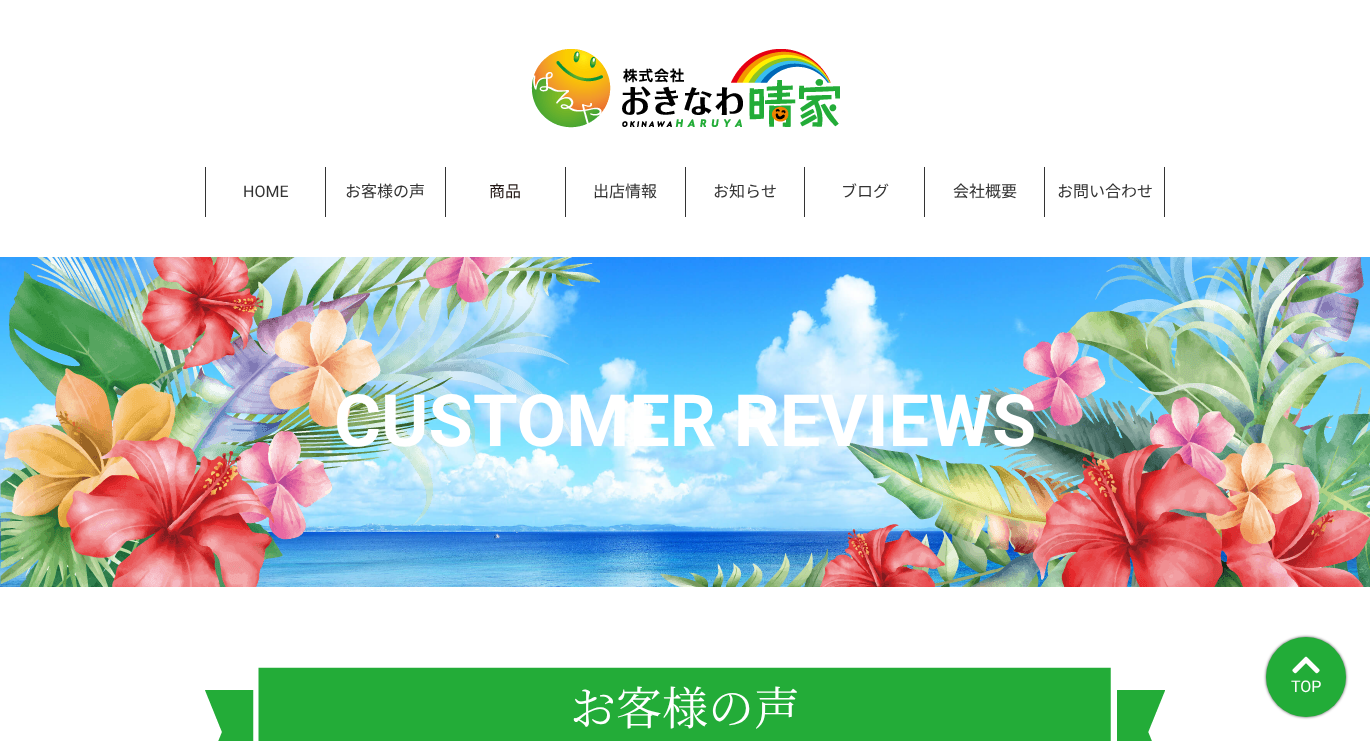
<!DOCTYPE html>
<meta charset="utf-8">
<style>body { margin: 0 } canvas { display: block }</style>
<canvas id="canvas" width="1370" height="741"></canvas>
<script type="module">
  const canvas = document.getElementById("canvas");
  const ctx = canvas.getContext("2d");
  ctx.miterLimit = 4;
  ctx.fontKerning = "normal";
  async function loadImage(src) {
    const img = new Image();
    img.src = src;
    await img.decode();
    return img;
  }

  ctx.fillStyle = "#ffffff";
  ctx.fillRect(0, 0, 1370, 741);
  ctx.drawImage(await loadImage("img1.png"), 531, 49, 309, 79);
  ctx.fillStyle = "#333333";
  ctx.fillRect(205, 167, 1, 50);
  ctx.fillRect(325, 167, 1, 50);
  ctx.font = "16px Roboto";
  ctx.fillText("HOME", 243, 197);
  ctx.fillRect(445, 167, 1, 50);
  ctx.font = "16px Noto Sans JP";
  ctx.fillText("お客様の声", 345, 197);
  ctx.fillRect(565, 167, 1, 50);
  ctx.fillStyle = "#231815";
  ctx.fillText("商品", 489, 197);
  ctx.fillStyle = "#333333";
  ctx.fillRect(685, 167, 1, 50);
  ctx.fillText("出店情報", 593, 197);
  ctx.fillRect(804, 167, 1, 50);
  ctx.fillText("お知らせ", 713, 197);
  ctx.fillRect(924, 167, 1, 50);
  ctx.fillText("ブログ", 841, 197);
  ctx.fillRect(1044, 167, 1, 50);
  ctx.fillText("会社概要", 953, 197);
  ctx.fillRect(1164, 167, 1, 50);
  ctx.fillText("お問い合わせ", 1057, 197);
  ctx.drawImage(await loadImage("img2.png"), 0, 257, 1370, 330);
  ctx.drawImage(await loadImage("img3.png"), 0, 257, 600, 330);
  ctx.drawImage(await loadImage("img4.png"), 660, 257, 710, 330);
  ctx.font = "bold 72px Roboto";
  ctx.fillStyle = "#ffffff";
  ctx.fillText("CUSTOMER REVIEWS", 334, 446);
  ctx.drawImage(await loadImage("img5.png"), 205, 667, 960, 74);
  ctx.font = "46px Noto Serif JP";
  ctx.fillText("お客様の声", 570, 725);
  ctx.fillStyle = "rgba(0, 0, 0, 0.7)";
  ctx.filter = "blur(1.5px)";
  ctx.beginPath();
  ctx.roundRect(1266, 637, 80, 80, 40);
  ctx.fill();
  ctx.filter = "none";
  ctx.fillStyle = "#22ac38";
  ctx.beginPath();
  ctx.arc(1306, 677, 40, 0, Math.PI * 2);
  ctx.fill();
  ctx.drawImage(await loadImage("img6.png"), 1292, 656, 28, 18);
  ctx.font = "16px Roboto";
  ctx.fillStyle = "#ffffff";
  ctx.fillText("TOP", 1291, 692);
</script>
